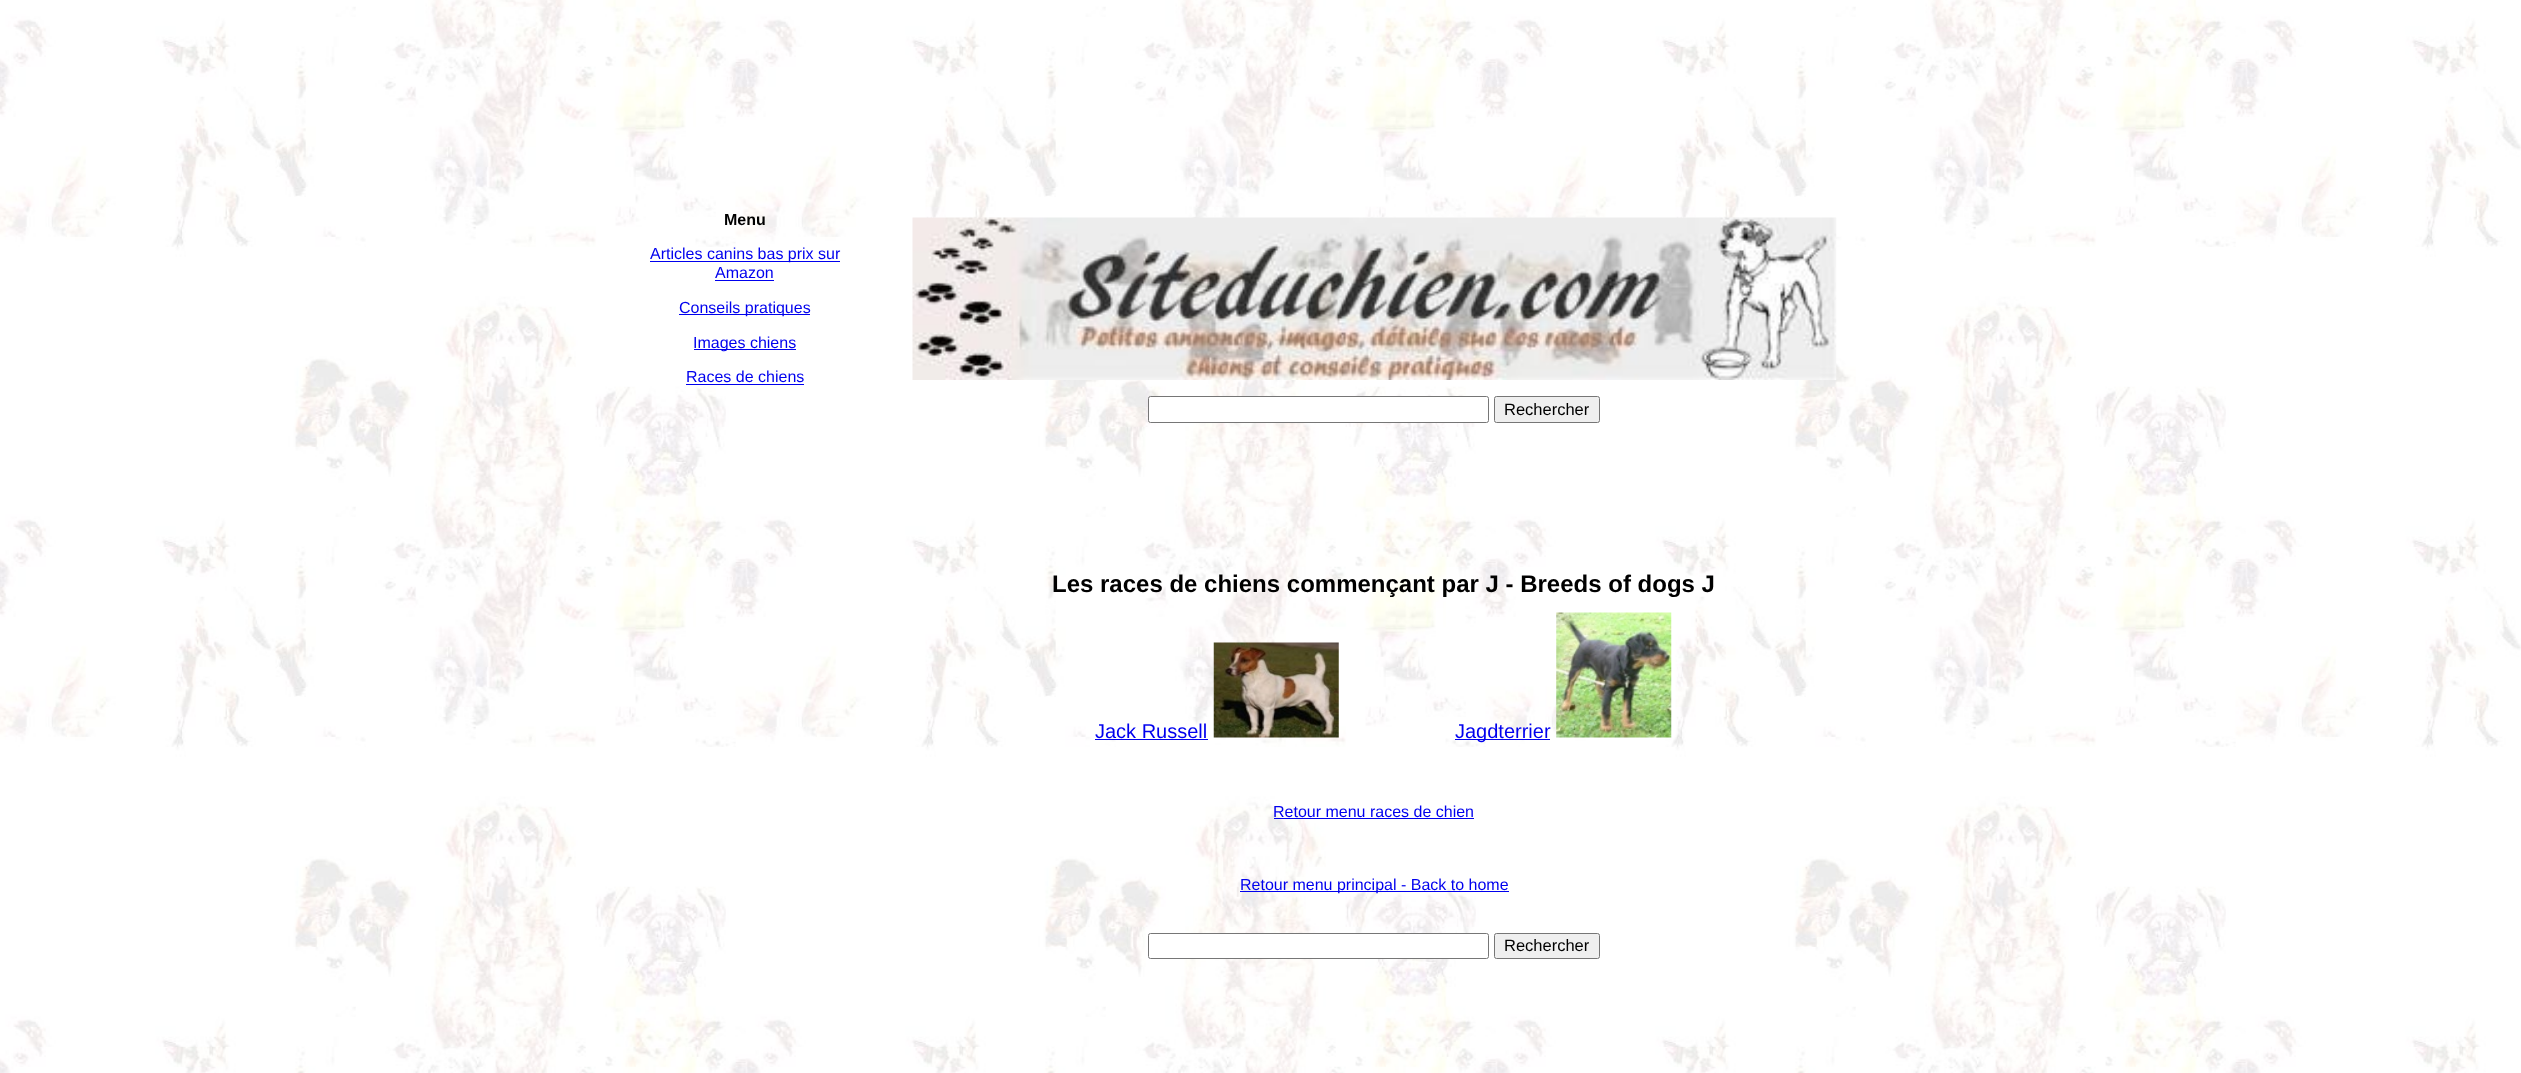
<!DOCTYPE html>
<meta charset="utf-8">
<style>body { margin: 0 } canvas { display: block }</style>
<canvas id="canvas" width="2521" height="1073"></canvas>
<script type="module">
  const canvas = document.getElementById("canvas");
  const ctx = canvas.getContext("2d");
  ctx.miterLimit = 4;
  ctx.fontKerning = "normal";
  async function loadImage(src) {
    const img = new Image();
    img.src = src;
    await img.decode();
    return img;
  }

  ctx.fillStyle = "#ffffff";
  ctx.fillRect(0, 0, 2521, 1073);
  ctx.drawImage(await loadImage("img1.png"), 0, 0, 2521, 1073);
  ctx.font = "bold 16px Liberation Sans";
  ctx.fillStyle = "#000000";
  ctx.fillText("Menu", 724, 225);
  ctx.fillStyle = "#0000ee";
  ctx.fillRect(650, 261, 190, 1);
  ctx.font = "16px Liberation Sans";
  ctx.fillText("Articles canins bas prix sur", 650, 259);
  ctx.fillText("Amazon", 715, 278);
  ctx.fillRect(715, 280, 59, 1);
  ctx.fillRect(679, 314, 131, 1);
  ctx.fillText("Conseils pratiques", 679, 313);
  ctx.fillRect(694, 349, 102, 1);
  ctx.fillText("Images chiens", 693, 348);
  ctx.fillText("Races de chiens", 686, 382);
  ctx.fillRect(686, 384, 118, 1);
  ctx.drawImage(await loadImage("img2.png"), 912, 217, 925, 163);
  ctx.fillStyle = "#ffffff";
  ctx.beginPath();
  ctx.roundRect(1148.5, 396.5, 340, 26, 2);
  ctx.fill();
  ctx.strokeStyle = "#767676";
  ctx.stroke();
  ctx.fillStyle = "#efefef";
  ctx.beginPath();
  ctx.roundRect(1494.5, 396.5, 105, 26, 2);
  ctx.fill();
  ctx.stroke();
  ctx.font = "16.5px Liberation Sans";
  ctx.fillStyle = "#000000";
  ctx.fillText("Rechercher", 1504, 415);
  ctx.font = "bold 24px Liberation Sans";
  ctx.fillText("Les races de chiens commençant par J - Breeds of dogs J", 1052, 592);
  ctx.font = "20px Liberation Sans";
  ctx.fillStyle = "#0000ee";
  ctx.fillText("Jack Russell", 1095, 738);
  ctx.fillRect(1095, 739, 113, 1);
  ctx.drawImage(await loadImage("img3.png"), 1213, 642, 126, 96);
  ctx.fillRect(1455, 739, 95, 1);
  ctx.fillText("Jagdterrier", 1455, 738);
  ctx.drawImage(await loadImage("img4.png"), 1556, 612, 116, 126);
  ctx.font = "16px Liberation Sans";
  ctx.fillText("Retour menu races de chien", 1273, 817);
  ctx.fillRect(1274, 818, 200, 1);
  ctx.fillRect(1240, 891, 269, 1);
  ctx.fillText("Retour menu principal - Back to home", 1240, 890);
  ctx.fillStyle = "#ffffff";
  ctx.beginPath();
  ctx.roundRect(1148.5, 933.5, 340, 25, 2);
  ctx.fill();
  ctx.stroke();
  ctx.fillStyle = "#efefef";
  ctx.beginPath();
  ctx.roundRect(1494.5, 933.5, 105, 25, 2);
  ctx.fill();
  ctx.stroke();
  ctx.font = "16.5px Liberation Sans";
  ctx.fillStyle = "#000000";
  ctx.fillText("Rechercher", 1504, 951);
</script>
